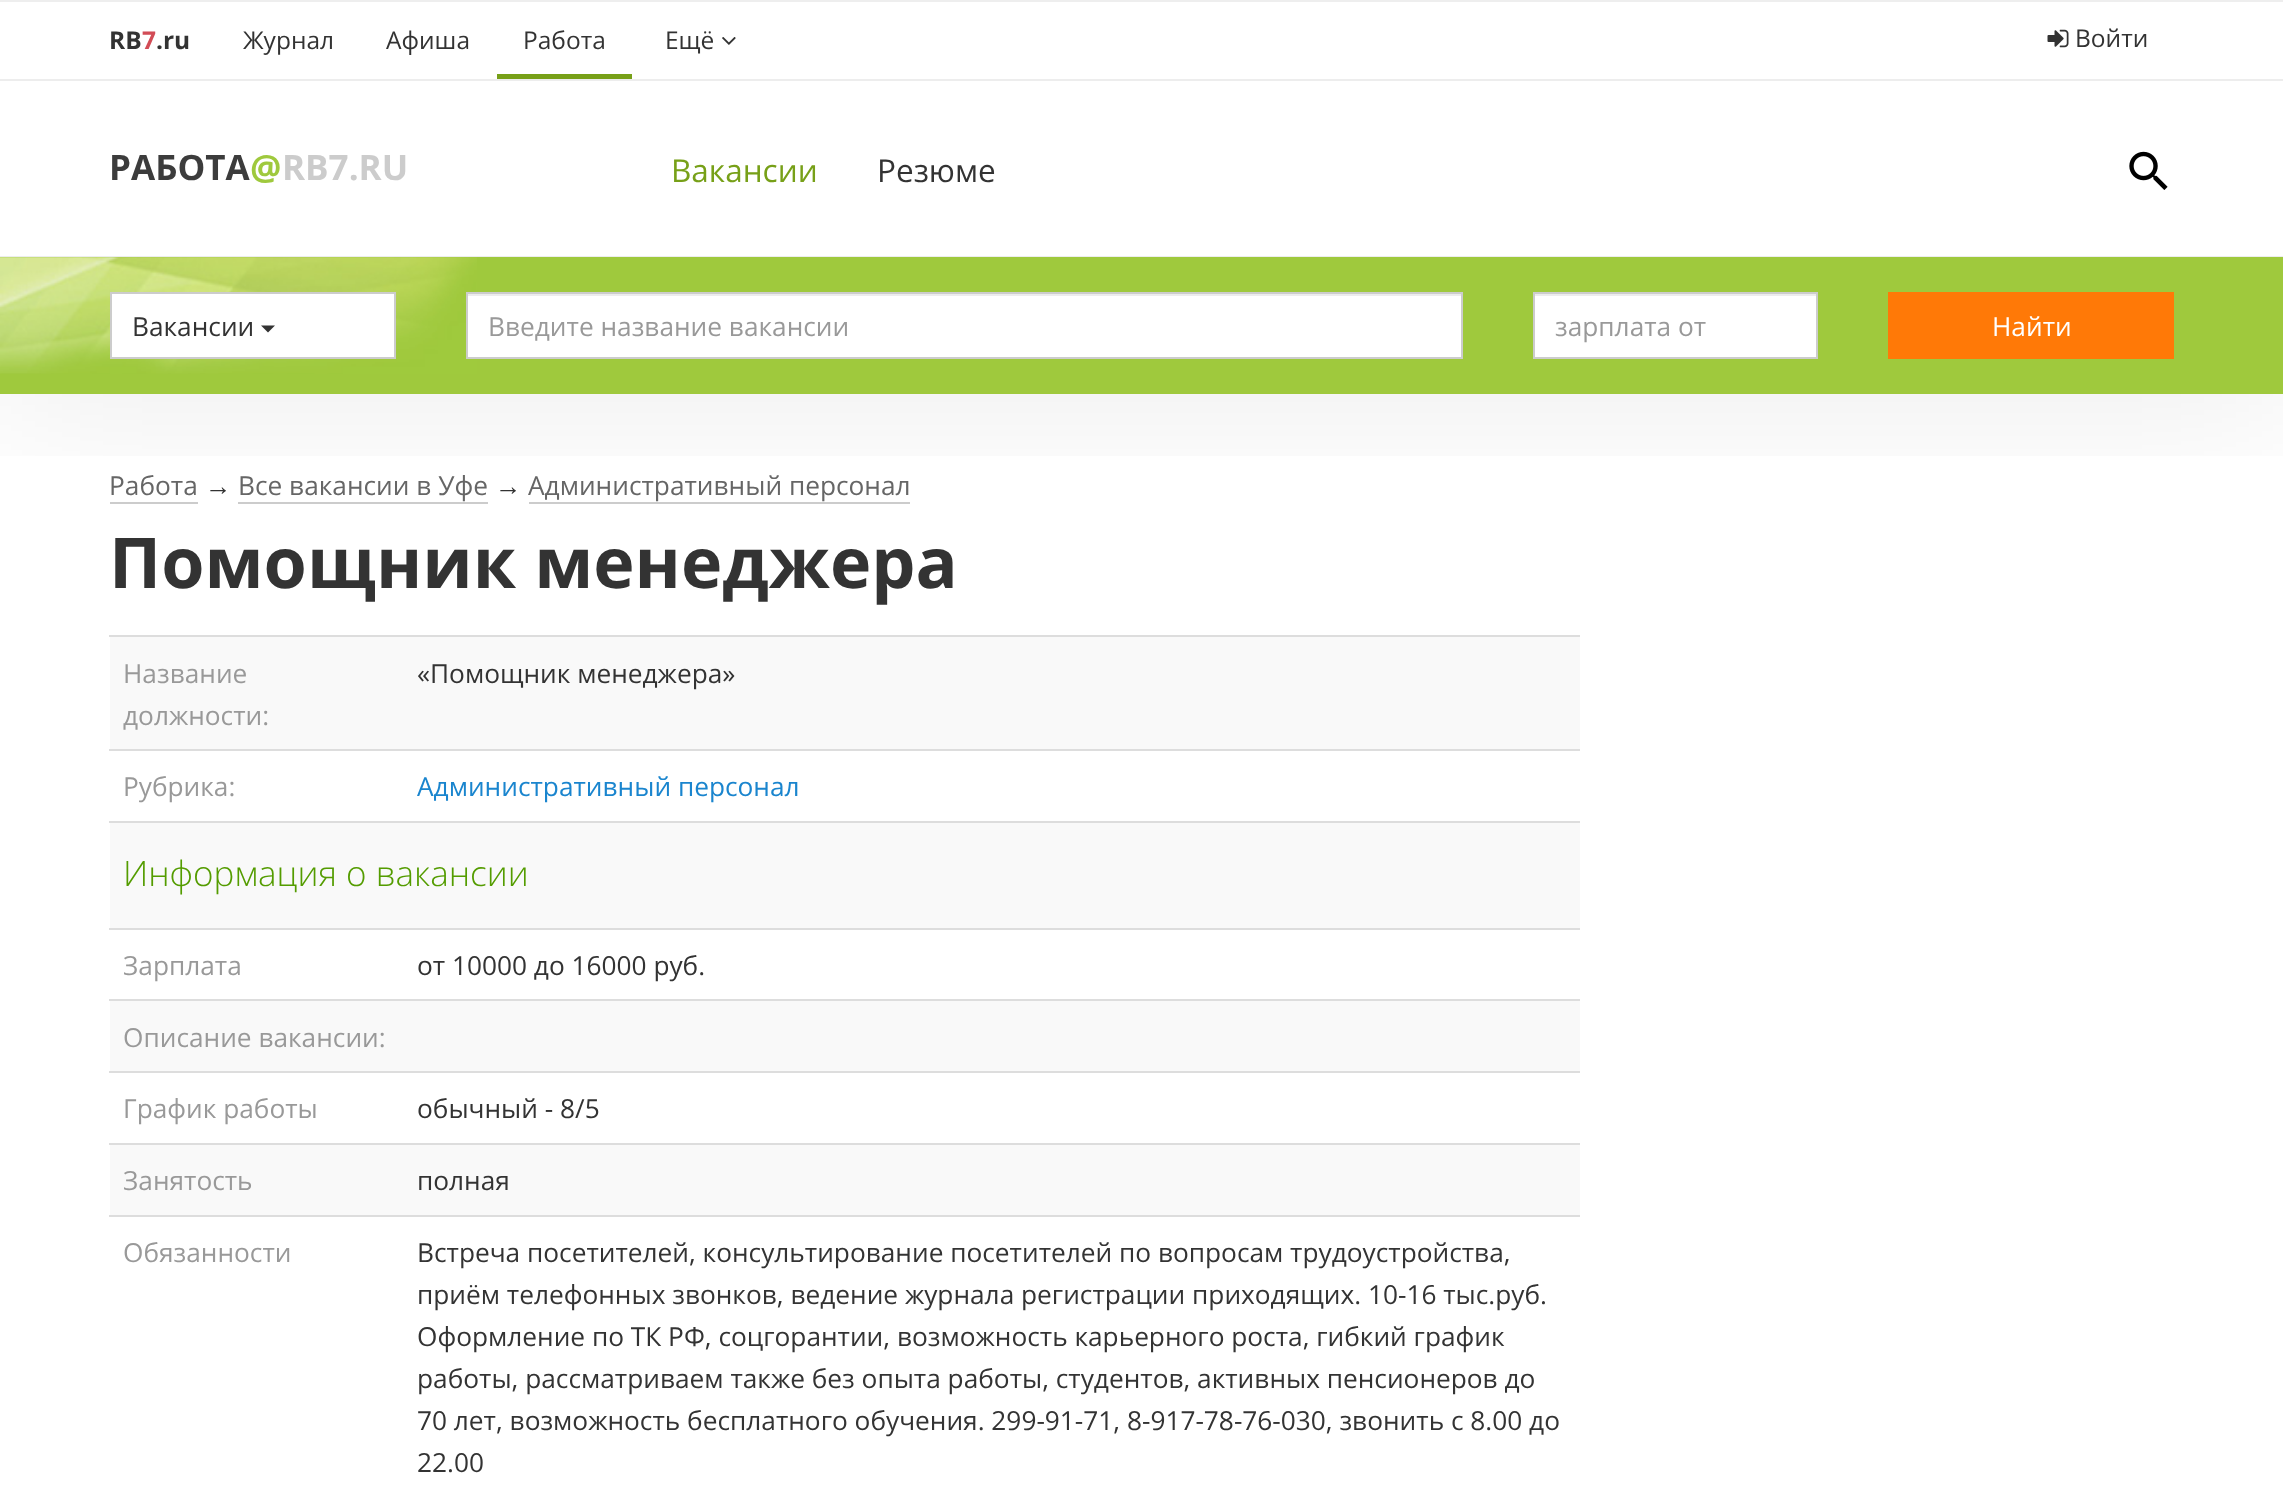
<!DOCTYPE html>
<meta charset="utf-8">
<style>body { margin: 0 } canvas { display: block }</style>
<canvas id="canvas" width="2283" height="1486"></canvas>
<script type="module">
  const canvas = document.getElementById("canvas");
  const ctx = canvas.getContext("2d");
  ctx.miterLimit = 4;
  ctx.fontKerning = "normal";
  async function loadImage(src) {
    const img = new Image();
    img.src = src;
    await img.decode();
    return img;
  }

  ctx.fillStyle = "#ffffff";
  ctx.fillRect(0, 0, 2283, 1486);
  ctx.fillStyle = "#eeeeee";
  ctx.fillRect(0, 0, 2283, 2);
  ctx.save();
  ctx.beginPath();
  ctx.rect(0, 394, 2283, 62);
  ctx.clip();
  ctx.fillStyle = "rgba(0, 0, 0, 0.08)";
  ctx.filter = "blur(87.5px)";
  ctx.beginPath();
  ctx.rect(-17, 184, 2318, 213);
  ctx.fill();
  ctx.filter = "none";
  ctx.restore();
  ctx.font = "bold 24.5px Open Sans";
  ctx.fillStyle = "#333333";
  ctx.fillText("RB", 109, 49);
  ctx.fillStyle = "#d24c56";
  ctx.fillText("7", 142, 49);
  ctx.fillStyle = "#333333";
  ctx.fillText(".ru", 156, 49);
  ctx.font = "24.5px Open Sans";
  ctx.fillText("Журнал", 243, 49);
  ctx.fillText("Афиша", 386, 49);
  ctx.fillStyle = "#77a018";
  ctx.fillRect(497, 74, 135, 5);
  ctx.fillStyle = "#333333";
  ctx.fillText("Работа", 523, 49);
  ctx.fillText("Ещё", 665, 49);
  ctx.drawImage(await loadImage("img1.png"), 722, 37, 14, 8);
  ctx.drawImage(await loadImage("img2.png"), 2047, 29, 22, 19);
  ctx.fillText("Войти", 2075, 47);
  ctx.fillStyle = "#ededed";
  ctx.fillRect(0, 79, 2283, 2);
  ctx.fillRect(0, 256, 2283, 1);
  ctx.font = "bold 35px Open Sans";
  ctx.fillStyle = "#3c3c3c";
  ctx.fillText("РАБОТА", 109, 180);
  ctx.fillStyle = "#9fc93d";
  ctx.fillText("@", 250, 180);
  ctx.fillStyle = "#cccccc";
  ctx.fillText("RB7.RU", 282, 180);
  ctx.font = "31.5px Open Sans";
  ctx.fillStyle = "#77a018";
  ctx.fillText("Вакансии", 671, 182);
  ctx.fillStyle = "#333333";
  ctx.fillText("Резюме", 877, 182);
  ctx.drawImage(await loadImage("img3.png"), 2129, 151, 39, 39);
  ctx.fillStyle = "#9fc93d";
  ctx.fillRect(0, 257, 2283, 137);
  ctx.drawImage(await loadImage("img4.png"), 0, 257, 477, 117);
  ctx.fillStyle = "#ffffff";
  ctx.beginPath();
  ctx.rect(111, 293, 284, 65);
  ctx.fill();
  ctx.strokeStyle = "#cccccc";
  ctx.lineWidth = 2;
  ctx.stroke();
  ctx.font = "26.25px Open Sans";
  ctx.fillStyle = "#333333";
  ctx.fillText("Вакансии", 132, 336);
  ctx.beginPath();
  ctx.moveTo(261, 325.5);
  ctx.lineTo(275, 325.5);
  ctx.lineTo(268, 332.5);
  ctx.closePath();
  ctx.fill();
  ctx.fillStyle = "#ffffff";
  ctx.fillRect(468, 296, 993, 61);
  ctx.fillStyle = "#ececec";
  ctx.fillRect(467, 294, 994, 2);
  ctx.strokeRect(467, 293, 995, 65);
  ctx.fillStyle = "#999999";
  ctx.fillText("Введите название вакансии", 488, 336);
  ctx.fillStyle = "#ffffff";
  ctx.fillRect(1535, 296, 281, 61);
  ctx.fillStyle = "#ececec";
  ctx.fillRect(1535, 294, 282, 2);
  ctx.strokeRect(1534, 293, 283, 65);
  ctx.fillStyle = "#999999";
  ctx.fillText("зарплата от", 1555, 336);
  ctx.fillStyle = "#ff7907";
  ctx.fillRect(1888, 292, 286, 67);
  ctx.fillStyle = "#ffffff";
  ctx.fillText("Найти", 1992, 336);
  ctx.fillStyle = "#666666";
  ctx.fillText("Работа", 109, 495);
  ctx.fillStyle = "#cccccc";
  ctx.fillRect(110, 502, 88, 2);
  ctx.font = "26.25px Liberation Sans";
  ctx.fillStyle = "#333333";
  ctx.fillText("→", 205, 495);
  ctx.font = "26.25px Open Sans";
  ctx.fillStyle = "#666666";
  ctx.fillText("Все вакансии в Уфе", 238, 495);
  ctx.fillStyle = "#cccccc";
  ctx.fillRect(238, 502, 250, 2);
  ctx.font = "26.25px Liberation Sans";
  ctx.fillStyle = "#333333";
  ctx.fillText("→", 495, 495);
  ctx.font = "26.25px Open Sans";
  ctx.fillStyle = "#666666";
  ctx.fillText("Административный персонал", 528, 495);
  ctx.fillStyle = "#cccccc";
  ctx.fillRect(529, 502, 381, 2);
  ctx.font = "bold 70px Open Sans";
  ctx.fillStyle = "#333333";
  ctx.fillText("Помощник менеджера", 109, 588);
  ctx.fillStyle = "#f9f9f9";
  ctx.fillRect(110, 637, 1470, 112);
  ctx.font = "26.25px Open Sans";
  ctx.fillStyle = "#999999";
  ctx.fillText("Название", 123, 683);
  ctx.fillText("должности:", 123, 725);
  ctx.fillStyle = "#dddddd";
  ctx.fillRect(109, 635, 1471, 2);
  ctx.fillStyle = "#333333";
  ctx.fillText("«Помощник менеджера»", 417, 683);
  ctx.fillStyle = "#999999";
  ctx.fillText("Рубрика:", 123, 796);
  ctx.fillStyle = "#dddddd";
  ctx.fillRect(109, 749, 1471, 2);
  ctx.fillStyle = "#1a85ce";
  ctx.fillText("Административный персонал", 417, 796);
  ctx.fillStyle = "#f9f9f9";
  ctx.fillRect(110, 823, 1470, 105);
  ctx.fillStyle = "#dddddd";
  ctx.fillRect(109, 821, 1471, 2);
  ctx.font = "300 35px Open Sans";
  ctx.fillStyle = "#549c00";
  ctx.fillText("Информация о вакансии", 123, 886);
  ctx.font = "26.25px Open Sans";
  ctx.fillStyle = "#999999";
  ctx.fillText("Зарплата", 123, 975);
  ctx.fillStyle = "#dddddd";
  ctx.fillRect(109, 928, 1471, 2);
  ctx.fillStyle = "#333333";
  ctx.fillText("от 10000 до 16000 руб.", 417, 975);
  ctx.fillStyle = "#f9f9f9";
  ctx.fillRect(110, 1001, 1470, 70);
  ctx.fillStyle = "#dddddd";
  ctx.fillRect(109, 999, 1471, 2);
  ctx.fillStyle = "#999999";
  ctx.fillText("Описание вакансии:", 123, 1047);
  ctx.fillText("График работы", 123, 1118);
  ctx.fillStyle = "#dddddd";
  ctx.fillRect(109, 1071, 1471, 2);
  ctx.fillStyle = "#333333";
  ctx.fillText("обычный - 8/5", 417, 1118);
  ctx.fillStyle = "#f9f9f9";
  ctx.fillRect(110, 1145, 1470, 70);
  ctx.fillStyle = "#999999";
  ctx.fillText("Занятость", 123, 1190);
  ctx.fillStyle = "#dddddd";
  ctx.fillRect(109, 1143, 1471, 2);
  ctx.fillStyle = "#333333";
  ctx.fillText("полная", 417, 1190);
  ctx.fillStyle = "#999999";
  ctx.fillText("Обязанности", 123, 1262);
  ctx.fillStyle = "#dddddd";
  ctx.fillRect(109, 1215, 1471, 2);
  ctx.fillStyle = "#333333";
  ctx.fillText("Встреча посетителей, консультирование посетителей по вопросам трудоустройства,", 417, 1262);
  ctx.fillText("приём телефонных звонков, ведение журнала регистрации приходящих. 10-16 тыс.руб.", 417, 1304);
  ctx.fillText("Оформление по ТК РФ, соцгорантии, возможность карьерного роста, гибкий график", 417, 1346);
  ctx.fillText("работы, рассматриваем также без опыта работы, студентов, активных пенсионеров до", 417, 1388);
  ctx.fillText("70 лет, возможность бесплатного обучения. 299-91-71, 8-917-78-76-030, звонить с 8.00 до", 417, 1430);
  ctx.fillText("22.00", 417, 1472);
</script>
